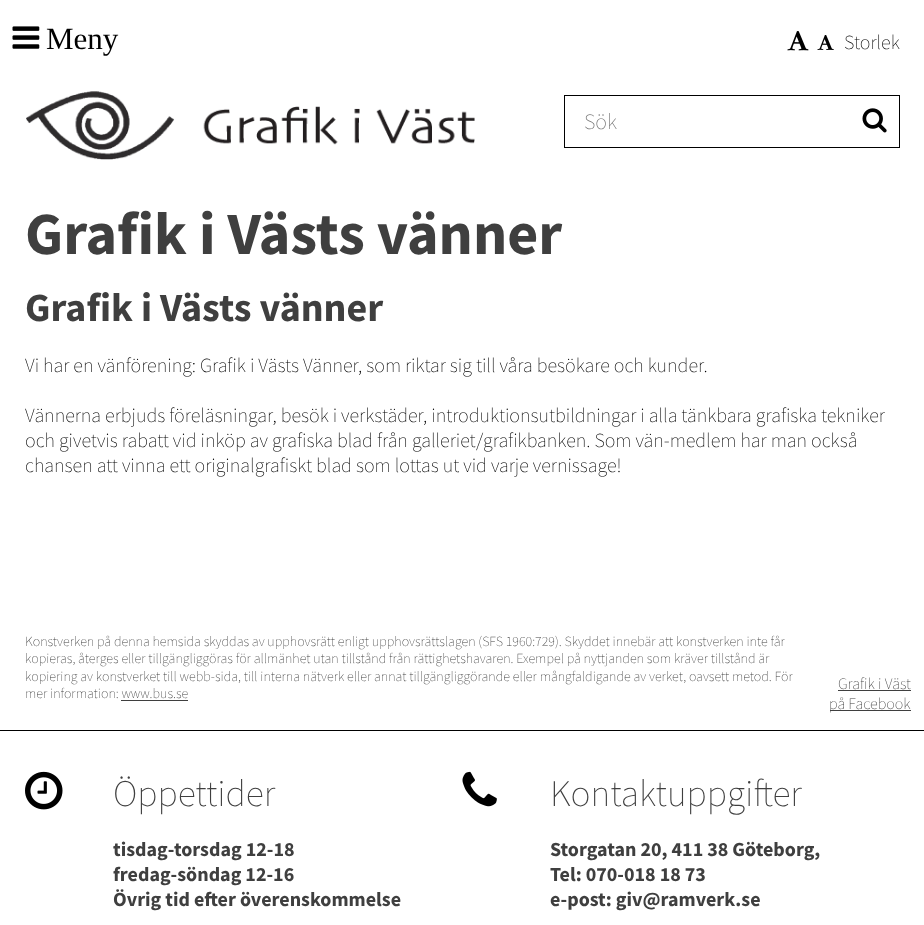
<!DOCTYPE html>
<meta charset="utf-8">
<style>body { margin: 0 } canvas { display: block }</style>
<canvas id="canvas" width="924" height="925"></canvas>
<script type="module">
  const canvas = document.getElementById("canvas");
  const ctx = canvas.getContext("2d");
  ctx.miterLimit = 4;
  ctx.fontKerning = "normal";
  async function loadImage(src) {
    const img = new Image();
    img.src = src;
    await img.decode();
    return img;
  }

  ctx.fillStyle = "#ffffff";
  ctx.fillRect(0, 0, 924, 925);
  ctx.drawImage(await loadImage("img1.png"), 12, 26, 28, 23);
  ctx.font = "31px Liberation Serif";
  ctx.fillStyle = "#000000";
  ctx.fillText("Meny", 46, 49);
  ctx.drawImage(await loadImage("img2.png"), 787, 31, 22, 20);
  ctx.drawImage(await loadImage("img3.png"), 817, 35, 17, 15);
  ctx.font = "200 20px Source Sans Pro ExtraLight";
  ctx.fillText("Storlek", 844, 49);
  ctx.drawImage(await loadImage("img4.png"), 26, 91, 449, 69);
  ctx.strokeStyle = "#000000";
  ctx.strokeRect(564.5, 95.5, 335, 52);
  ctx.font = "200 22px Source Sans Pro ExtraLight";
  ctx.fillStyle = "#757575";
  ctx.fillText("Sök", 584, 129);
  ctx.drawImage(await loadImage("img5.png"), 862, 108, 25, 25);
  ctx.font = "bold 60px Source Sans Pro";
  ctx.fillStyle = "#3f3f3f";
  ctx.fillText("Grafik i Västs vänner", 25, 254);
  ctx.font = "bold 40px Source Sans Pro";
  ctx.fillText("Grafik i Västs vänner", 25, 321);
  ctx.font = "200 20px Source Sans Pro ExtraLight";
  ctx.fillStyle = "#000000";
  ctx.fillText("Vi har en vänförening: Grafik i Västs Vänner, som riktar sig till våra besökare och kunder.", 25, 372);
  ctx.fillText("Vännerna erbjuds föreläsningar, besök i verkstäder, introduktionsutbildningar i alla tänkbara grafiska tekniker", 25, 422);
  ctx.fillText("och givetvis rabatt vid inköp av grafiska blad från galleriet/grafikbanken. Som vän-medlem har man också", 25, 447);
  ctx.fillText("chansen att vinna ett originalgrafiskt blad som lottas ut vid varje vernissage!", 25, 472);
  ctx.fillRect(0, 730, 924, 1);
  ctx.font = "200 14px Source Sans Pro ExtraLight";
  ctx.fillStyle = "#3f3f3f";
  ctx.fillText("Konstverken på denna hemsida skyddas av upphovsrätt enligt upphovsrättslagen (SFS 1960:729). Skyddet innebär att konstverken inte får", 25, 646);
  ctx.fillText("kopieras, återges eller tillgängliggöras för allmänhet utan tillstånd från rättighetshavaren. Exempel på nyttjanden som kräver tillstånd är", 25, 663);
  ctx.fillText("kopiering av konstverket till webb-sida, till interna nätverk eller annat tillgängliggörande eller mångfaldigande av verket, oavsett metod. För", 25, 681);
  ctx.fillText("mer information: www.bus.se", 25, 698);
  ctx.fillRect(121, 700, 67, 1);
  ctx.font = "200 16px Source Sans Pro ExtraLight";
  ctx.fillText("Grafik i Väst", 838, 689);
  ctx.fillRect(838, 690, 73, 1);
  ctx.fillRect(830, 710, 81, 1);
  ctx.fillText("på Facebook", 829, 709);
  ctx.drawImage(await loadImage("img6.png"), 25, 771, 38, 39);
  ctx.font = "200 37.5px Source Sans Pro ExtraLight";
  ctx.fillText("Öppettider", 113, 806);
  ctx.font = "bold 20px Source Sans Pro";
  ctx.fillText("tisdag-torsdag 12-18", 113, 856);
  ctx.fillText("fredag-söndag 12-16", 113, 881);
  ctx.fillText("Övrig tid efter överenskommelse", 113, 906);
  ctx.drawImage(await loadImage("img7.png"), 462, 771, 35, 36);
  ctx.font = "200 37.5px Source Sans Pro ExtraLight";
  ctx.fillText("Kontaktuppgifter", 550, 806);
  ctx.font = "bold 20px Source Sans Pro";
  ctx.fillText("Storgatan 20, 411 38 Göteborg,", 550, 856);
  ctx.fillText("Tel: 070-018 18 73", 550, 881);
  ctx.fillText("e-post: giv@ramverk.se", 550, 906);
</script>
